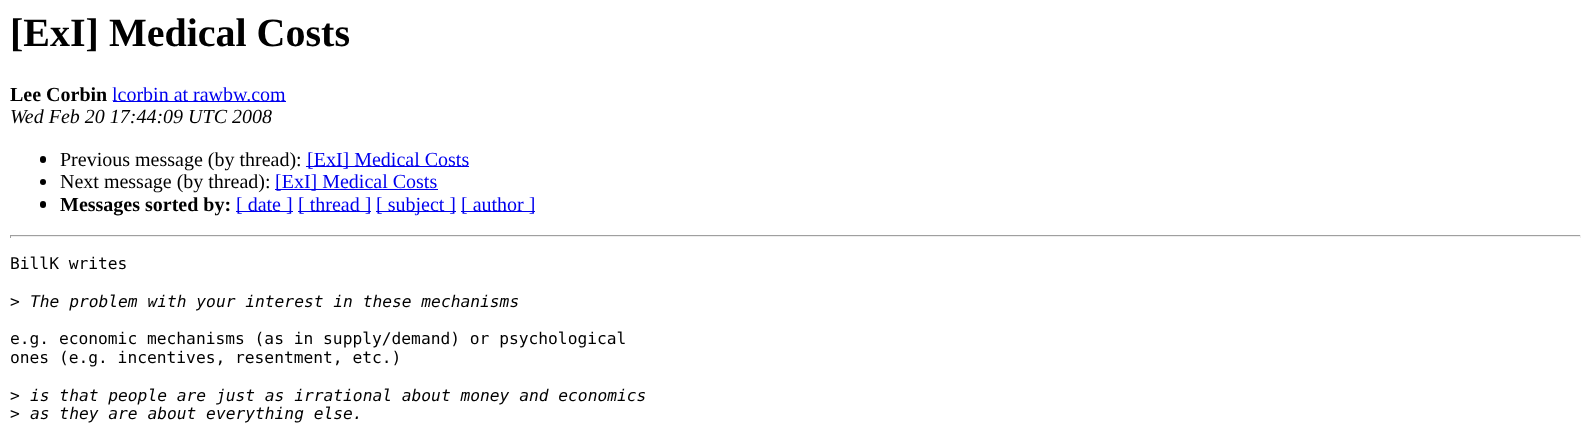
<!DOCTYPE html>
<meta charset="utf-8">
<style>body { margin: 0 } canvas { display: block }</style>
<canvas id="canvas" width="1591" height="443"></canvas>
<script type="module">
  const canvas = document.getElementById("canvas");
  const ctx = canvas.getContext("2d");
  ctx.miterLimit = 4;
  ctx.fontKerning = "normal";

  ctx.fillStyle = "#ffffff";
  ctx.fillRect(0, 0, 1591, 443);
  ctx.font = "bold 40px Liberation Serif";
  ctx.fillStyle = "#000000";
  ctx.fillText("[ExI] Medical Costs", 10, 46);
  ctx.font = "bold 20px Liberation Serif";
  ctx.fillText("Lee Corbin", 10, 101);
  ctx.fillStyle = "#0000ee";
  ctx.fillRect(113, 101, 173, 1);
  ctx.font = "20px Liberation Serif";
  ctx.fillText("lcorbin at rawbw.com", 112, 101);
  ctx.font = "italic 20px Liberation Serif";
  ctx.fillStyle = "#000000";
  ctx.fillText("Wed Feb 20 17:44:09 UTC 2008", 10, 123);
  ctx.beginPath();
  ctx.roundRect(40, 156, 6, 7, 3);
  ctx.fill();
  ctx.font = "20px Liberation Serif";
  ctx.fillText("Previous message (by thread):", 60, 166);
  ctx.fillStyle = "#0000ee";
  ctx.fillRect(306, 166, 163, 1);
  ctx.fillText("[ExI] Medical Costs", 307, 166);
  ctx.fillStyle = "#000000";
  ctx.beginPath();
  ctx.arc(43, 182, 3, 0, Math.PI * 2);
  ctx.fill();
  ctx.fillText("Next message (by thread):", 60, 188);
  ctx.fillStyle = "#0000ee";
  ctx.fillRect(275, 189, 163, 1);
  ctx.fillText("[ExI] Medical Costs", 275, 188);
  ctx.fillStyle = "#000000";
  ctx.beginPath();
  ctx.roundRect(40, 201, 6, 7, 3);
  ctx.fill();
  ctx.font = "bold 20px Liberation Serif";
  ctx.fillText("Messages sorted by:", 60, 211);
  ctx.fillStyle = "#0000ee";
  ctx.fillRect(236, 211, 57, 1);
  ctx.font = "20px Liberation Serif";
  ctx.fillText("[ date ]", 236, 211);
  ctx.fillRect(298, 211, 73, 1);
  ctx.fillText("[ thread ]", 298, 211);
  ctx.fillRect(376, 211, 80, 1);
  ctx.fillText("[ subject ]", 376, 211);
  ctx.fillRect(461, 211, 74, 1);
  ctx.fillText("[ author ]", 461, 211);
  ctx.fillStyle = "#9f9f9f";
  ctx.fillRect(10, 235, 1571, 1);
  ctx.fillStyle = "#eeeeee";
  ctx.fillRect(1580, 235, 1, 3);
  ctx.fillRect(10, 236, 1571, 1);
  ctx.fillStyle = "#9f9f9f";
  ctx.fillRect(10, 235, 1, 3);
  ctx.font = "16.25px DejaVu Sans Mono";
  ctx.fillStyle = "#000000";
  ctx.fillText("BillK writes", 10, 269);
  ctx.fillText(">", 10, 307);
  ctx.font = "italic 16.25px DejaVu Sans Mono";
  ctx.fillText("The problem with your interest in these mechanisms", 30, 307);
  ctx.font = "16.25px DejaVu Sans Mono";
  ctx.fillText("e.g. economic mechanisms (as in supply/demand) or psychological", 10, 344);
  ctx.fillText("ones (e.g. incentives, resentment, etc.)", 10, 363);
  ctx.fillText(">", 10, 401);
  ctx.font = "italic 16.25px DejaVu Sans Mono";
  ctx.fillText("is that people are just as irrational about money and economics", 30, 401);
  ctx.font = "16.25px DejaVu Sans Mono";
  ctx.fillText(">", 10, 419);
  ctx.font = "italic 16.25px DejaVu Sans Mono";
  ctx.fillText("as they are about everything else.", 30, 419);
</script>
